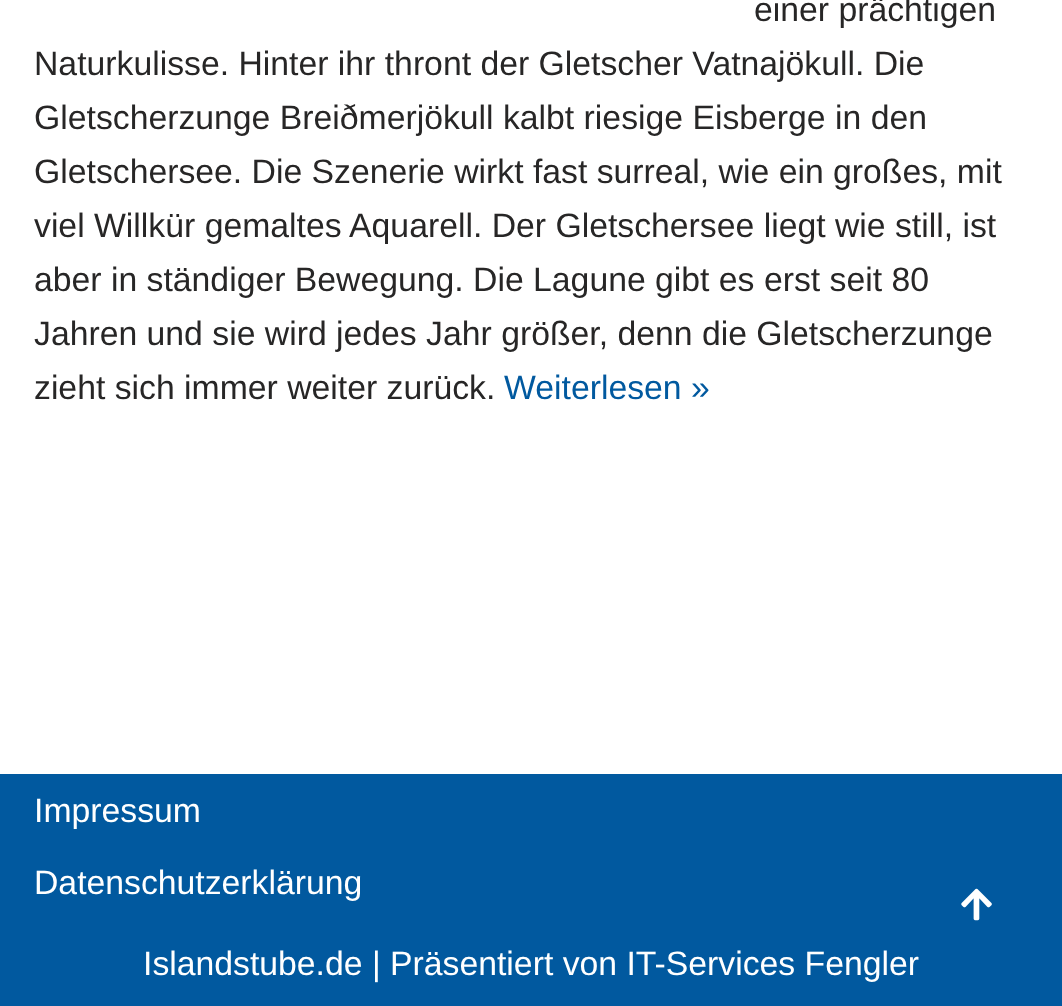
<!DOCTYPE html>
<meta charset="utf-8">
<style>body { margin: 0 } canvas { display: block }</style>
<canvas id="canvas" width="1062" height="1006"></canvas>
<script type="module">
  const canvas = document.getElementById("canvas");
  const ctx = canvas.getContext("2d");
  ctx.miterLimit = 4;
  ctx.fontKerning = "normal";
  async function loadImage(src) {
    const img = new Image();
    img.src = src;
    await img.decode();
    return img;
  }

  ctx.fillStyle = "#ffffff";
  ctx.fillRect(0, 0, 1062, 1006);
  ctx.font = "33.75px Liberation Sans";
  ctx.fillStyle = "#272626";
  ctx.fillText("einer prächtigen", 754, 21);
  ctx.fillText("Naturkulisse. Hinter ihr thront der Gletscher Vatnajökull. Die", 34, 75);
  ctx.fillText("Gletscherzunge Breiðmerjökull kalbt riesige Eisberge in den", 34, 129);
  ctx.fillText("Gletschersee. Die Szenerie wirkt fast surreal, wie ein großes, mit", 34, 183);
  ctx.fillText("viel Willkür gemaltes Aquarell. Der Gletschersee liegt wie still, ist", 34, 237);
  ctx.fillText("aber in ständiger Bewegung. Die Lagune gibt es erst seit 80", 34, 291);
  ctx.fillText("Jahren und sie wird jedes Jahr größer, denn die Gletscherzunge", 34, 345);
  ctx.fillText("zieht sich immer weiter zurück.", 34, 399);
  ctx.fillStyle = "#01599f";
  ctx.fillText("Weiterlesen »", 504, 399);
  ctx.fillRect(0, 774, 1062, 232);
  ctx.fillStyle = "#ffffff";
  ctx.fillText("Impressum", 34, 822);
  ctx.fillText("Datenschutzerklärung", 34, 894);
  ctx.fillText("Islandstube.de | Präsentiert von IT-Services Fengler", 143, 975);
  ctx.drawImage(await loadImage("img1.png"), 961, 888, 31, 33);
</script>
